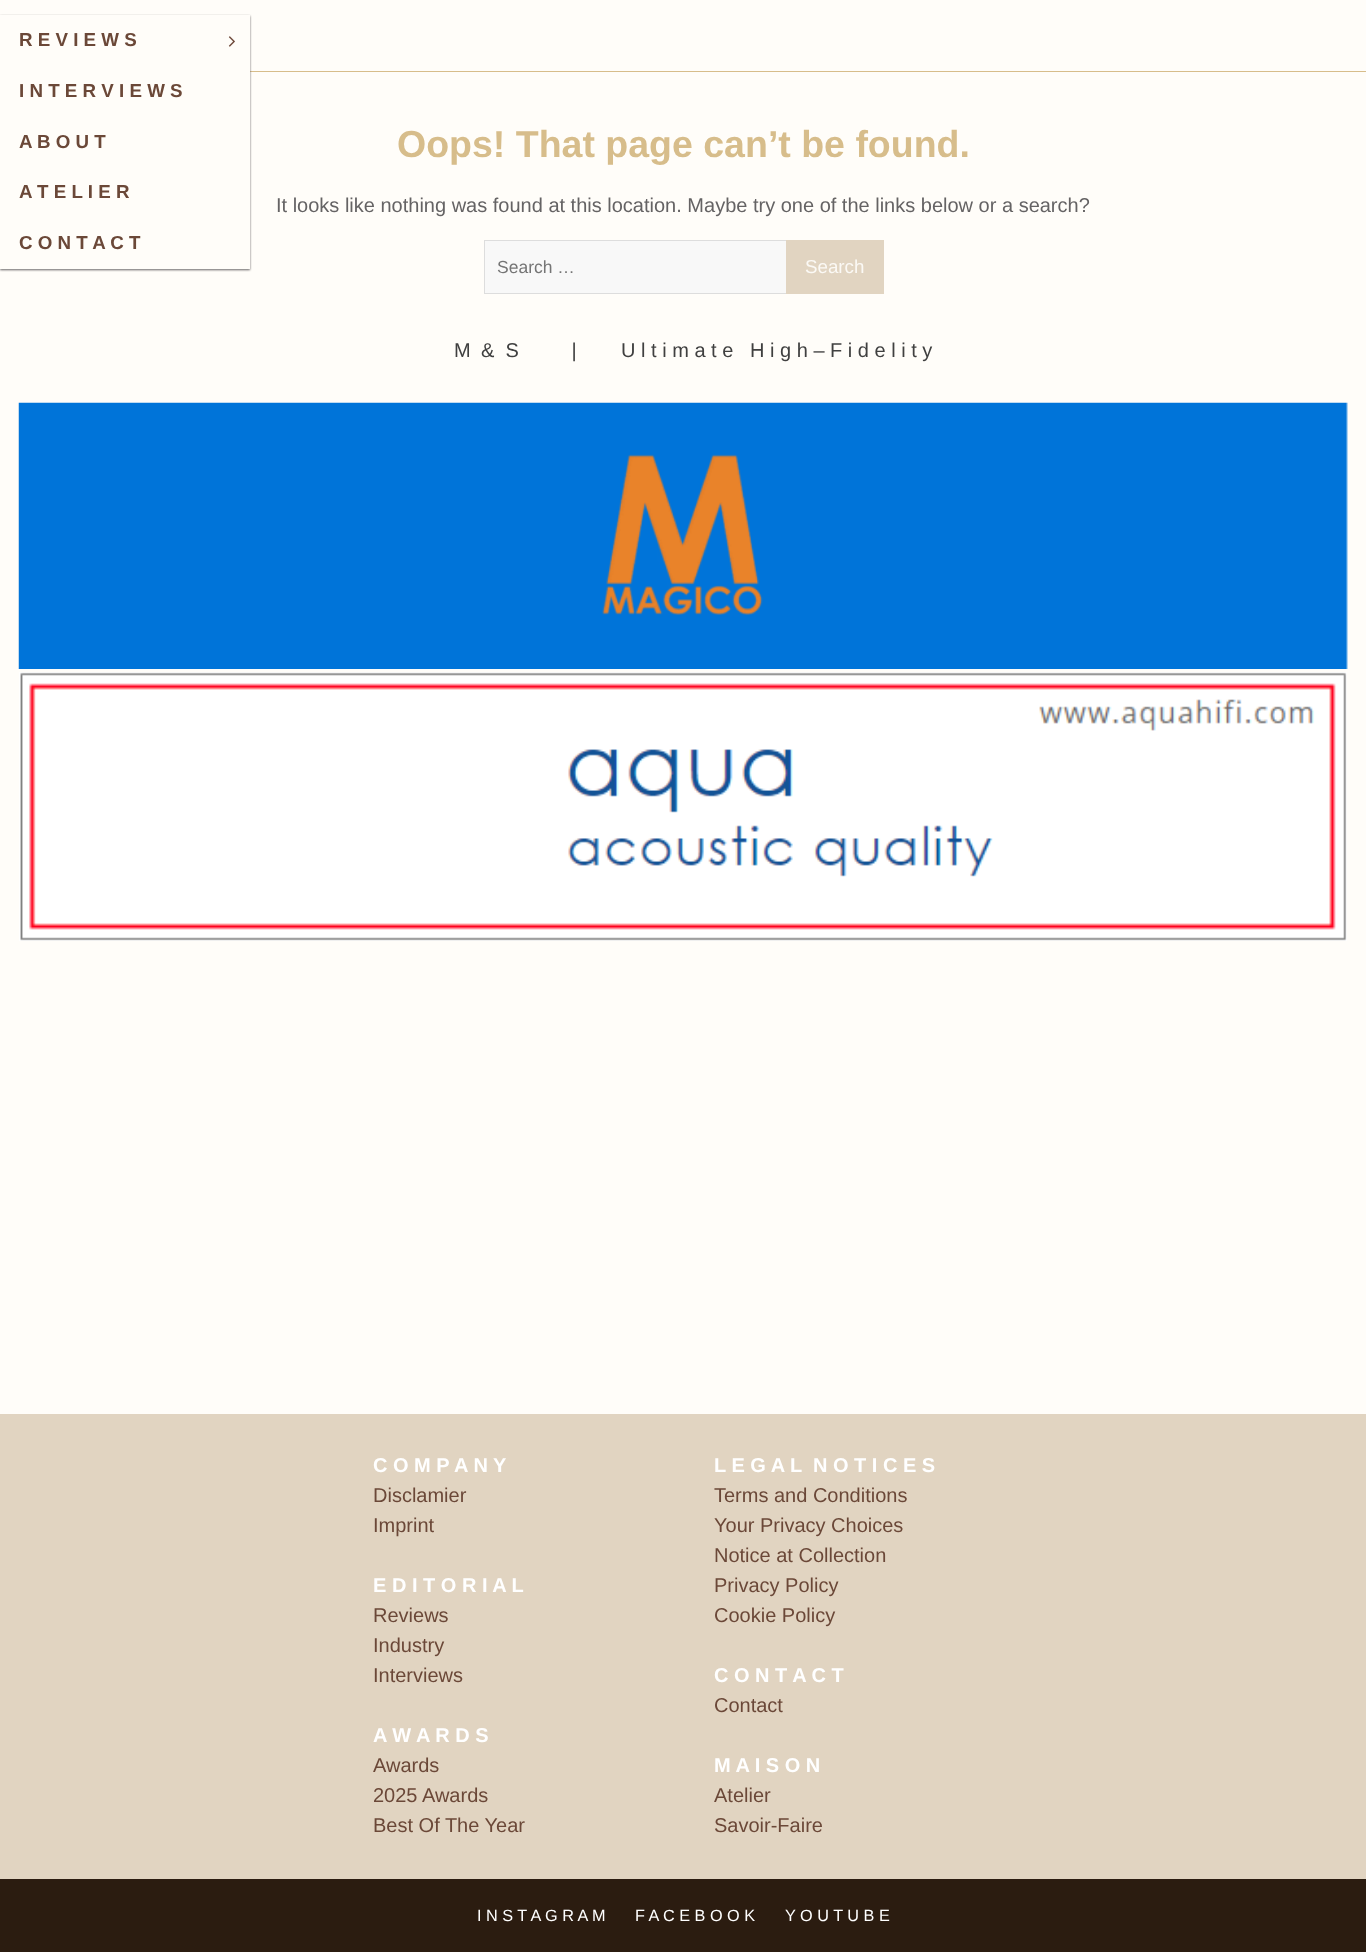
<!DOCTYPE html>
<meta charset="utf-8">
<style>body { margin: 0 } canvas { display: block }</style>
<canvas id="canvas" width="1366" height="1952"></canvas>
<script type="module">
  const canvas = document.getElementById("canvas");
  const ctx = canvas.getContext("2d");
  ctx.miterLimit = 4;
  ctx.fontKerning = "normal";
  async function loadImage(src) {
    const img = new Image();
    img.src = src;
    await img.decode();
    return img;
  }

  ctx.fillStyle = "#fffdf9";
  ctx.fillRect(0, 0, 1366, 1952);
  ctx.fillStyle = "#d7bd8b";
  ctx.fillRect(250, 71, 1116, 1);
  ctx.fillStyle = "#656364";
  ctx.filter = "blur(1px)";
  ctx.beginPath();
  ctx.rect(0, 16, 250, 254);
  ctx.fill();
  ctx.filter = "none";
  ctx.fillStyle = "#fffdf9";
  ctx.fillRect(0, 15, 250, 254);
  ctx.font = "bold 18.75px Liberation Sans";
  ctx.fillStyle = "#6b4838";
  ctx.fillText("R E V I E W S", 19, 46);
  ctx.drawImage(await loadImage("img1.png"), 228, 36, 7, 11);
  ctx.fillText("I N T E R V I E W S", 19, 97);
  ctx.fillText("A B O U T", 19, 148);
  ctx.fillText("A T E L I E R", 19, 198);
  ctx.fillText("C O N T A C T", 19, 249);
  ctx.font = "bold 37.5px Liberation Sans";
  ctx.fillStyle = "#d7bd8b";
  ctx.fillText("Oops! That page can’t be found.", 397, 157);
  ctx.font = "20px Liberation Sans";
  ctx.fillStyle = "#656364";
  ctx.fillText("It looks like nothing was found at this location. Maybe try one of the links below or a search?", 276, 212);
  ctx.fillStyle = "#f8f8f8";
  ctx.fillRect(485, 241, 301, 52);
  ctx.strokeStyle = "#dddddd";
  ctx.strokeRect(484.5, 240.5, 399, 53);
  ctx.font = "17.5px Liberation Sans";
  ctx.fillStyle = "#757575";
  ctx.fillText("Search …", 497, 273);
  ctx.fillStyle = "#e1d4c1";
  ctx.fillRect(786, 240, 98, 54);
  ctx.font = "18.75px Liberation Sans";
  ctx.fillStyle = "#fbf9f5";
  ctx.fillText("Search", 805, 273);
  ctx.font = "20px Liberation Sans";
  ctx.fillStyle = "#404040";
  ctx.fillText("M", 454, 357);
  ctx.fillText("&  S", 481, 357);
  ctx.fillText(" | ", 566, 357);
  ctx.fillText("  U l t i m a t e   H i g h – F i d e l i t y", 610, 357);
  ctx.drawImage(await loadImage("img2.png"), 18, 402, 1330, 267);
  ctx.drawImage(await loadImage("img3.png"), 19, 672, 1328, 269);
  ctx.fillStyle = "#e1d4c1";
  ctx.fillRect(0, 1414, 1366, 465);
  ctx.font = "bold 20px Liberation Sans";
  ctx.fillStyle = "#ffffff";
  ctx.fillText("C O M P A N Y", 373, 1472);
  ctx.font = "20px Liberation Sans";
  ctx.fillStyle = "#6b4838";
  ctx.fillText("Disclamier", 373, 1502);
  ctx.fillText("Imprint", 373, 1532);
  ctx.font = "bold 20px Liberation Sans";
  ctx.fillStyle = "#ffffff";
  ctx.fillText("E D I T O R I A L", 373, 1592);
  ctx.font = "20px Liberation Sans";
  ctx.fillStyle = "#6b4838";
  ctx.fillText("Reviews", 373, 1622);
  ctx.fillText("Industry", 373, 1652);
  ctx.fillText("Interviews", 373, 1682);
  ctx.font = "bold 20px Liberation Sans";
  ctx.fillStyle = "#ffffff";
  ctx.fillText("A W A R D S", 373, 1742);
  ctx.font = "20px Liberation Sans";
  ctx.fillStyle = "#6b4838";
  ctx.fillText("Awards", 373, 1772);
  ctx.fillText("2025 Awards", 373, 1802);
  ctx.fillText("Best Of The Year", 373, 1832);
  ctx.font = "bold 20px Liberation Sans";
  ctx.fillStyle = "#ffffff";
  ctx.fillText("L E G A L  N O T I C E S", 714, 1472);
  ctx.font = "20px Liberation Sans";
  ctx.fillStyle = "#6b4838";
  ctx.fillText("Terms and Conditions", 714, 1502);
  ctx.fillText("Your Privacy Choices", 714, 1532);
  ctx.fillText("Notice at Collection", 714, 1562);
  ctx.fillText("Privacy Policy", 714, 1592);
  ctx.fillText("Cookie Policy", 714, 1622);
  ctx.font = "bold 20px Liberation Sans";
  ctx.fillStyle = "#ffffff";
  ctx.fillText("C O N T A C T", 714, 1682);
  ctx.font = "20px Liberation Sans";
  ctx.fillStyle = "#6b4838";
  ctx.fillText("Contact", 714, 1712);
  ctx.font = "bold 20px Liberation Sans";
  ctx.fillStyle = "#ffffff";
  ctx.fillText("M A I S O N", 714, 1772);
  ctx.font = "20px Liberation Sans";
  ctx.fillStyle = "#6b4838";
  ctx.fillText("Atelier", 714, 1802);
  ctx.fillText("Savoir-Faire", 714, 1832);
  ctx.fillStyle = "#2b1c10";
  ctx.fillRect(0, 1879, 1366, 73);
  ctx.font = "16.25px Liberation Sans";
  ctx.fillStyle = "#ffffff";
  ctx.fillText("I N S T A G R A M", 477, 1921);
  ctx.fillText("F A C E B O O K", 635, 1921);
  ctx.fillText("Y O U T U B E", 785, 1921);
</script>
